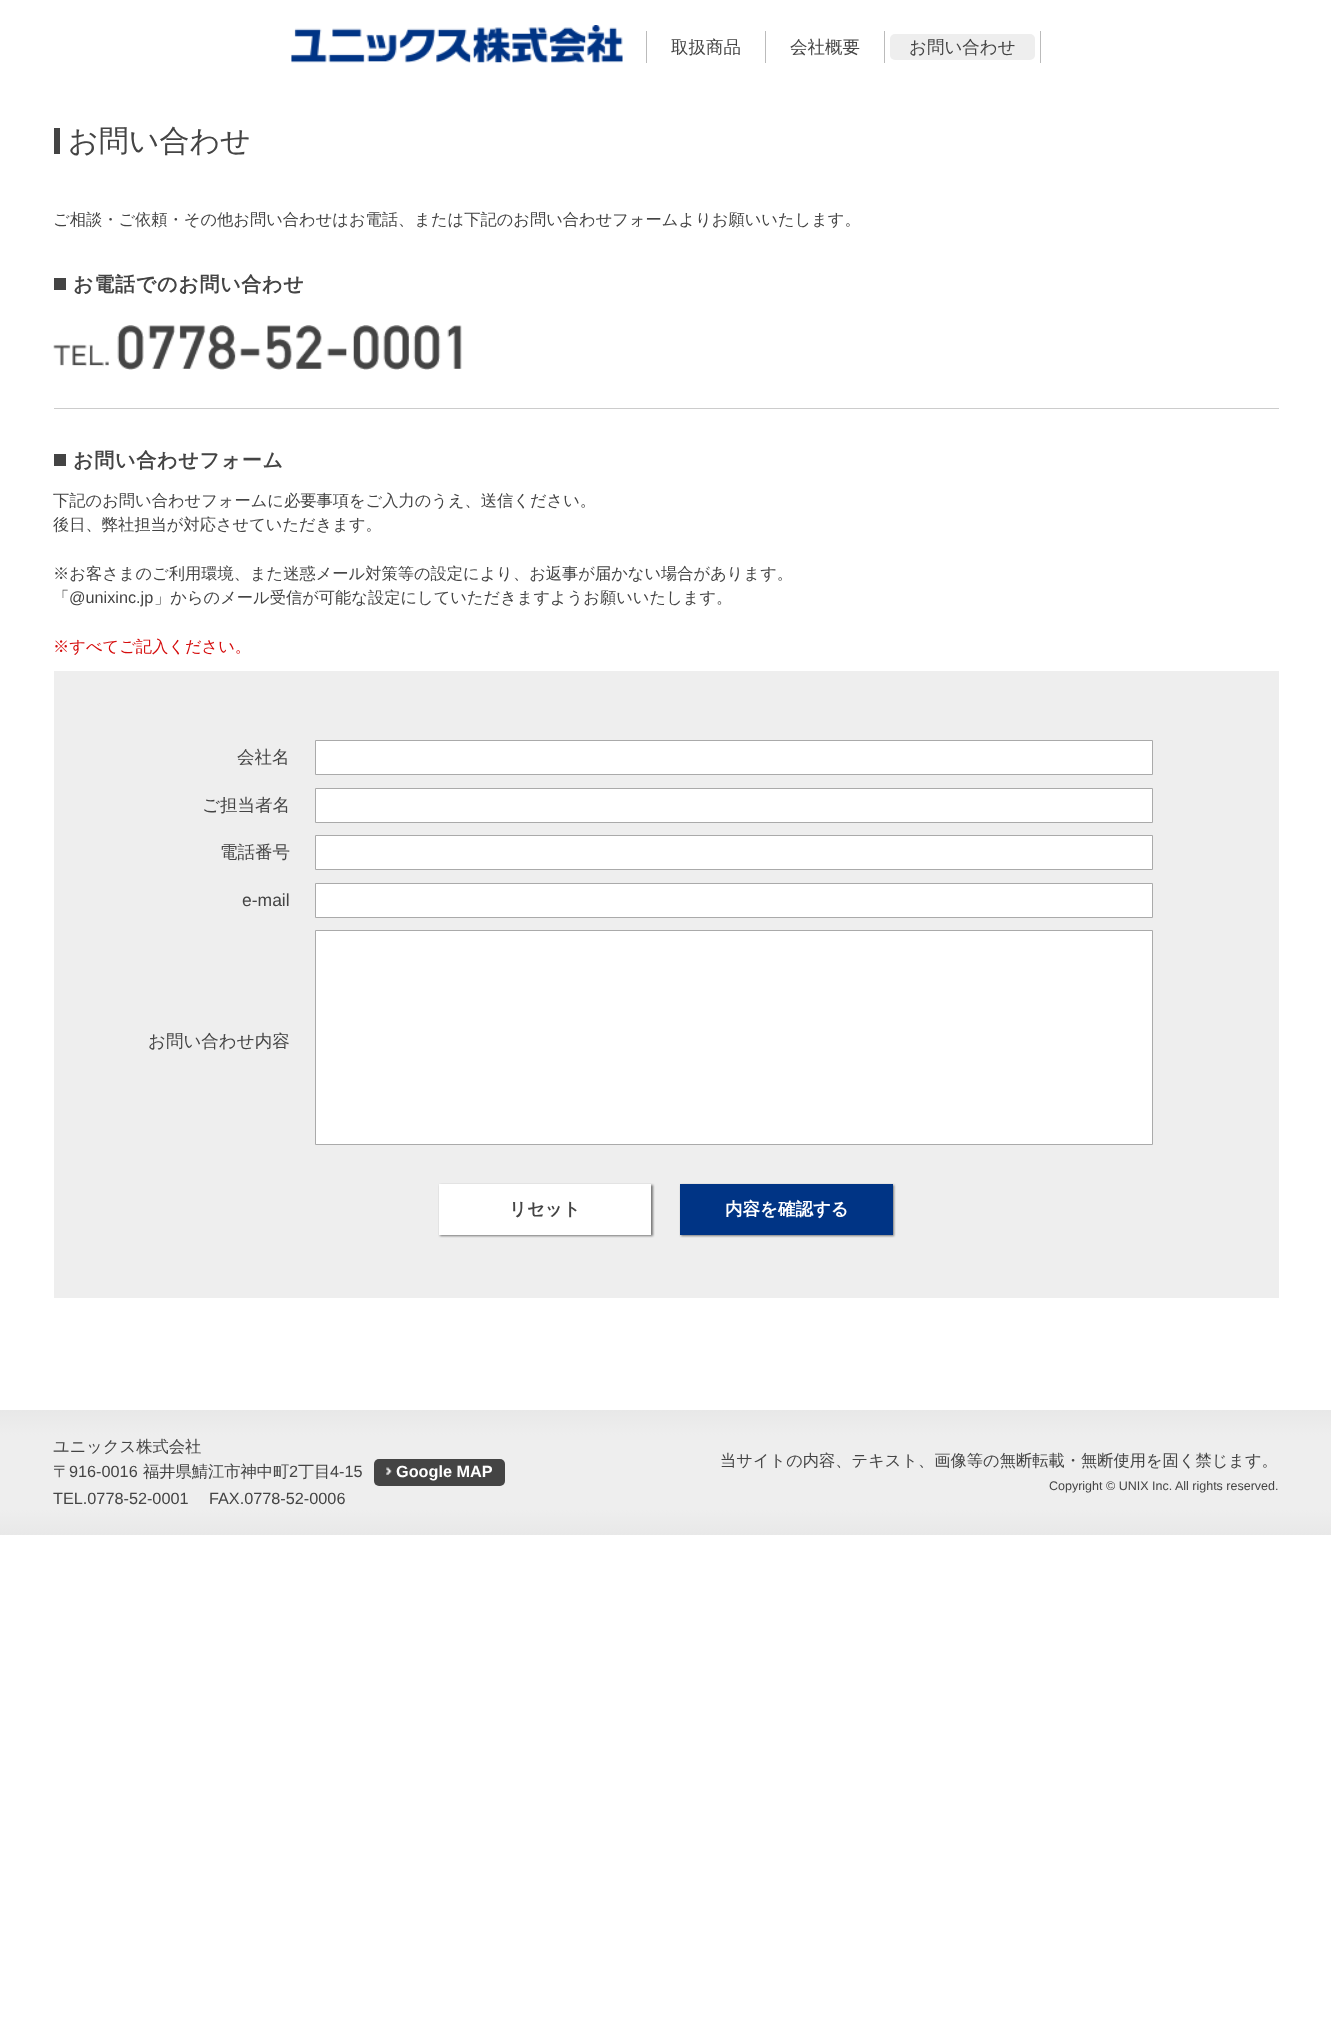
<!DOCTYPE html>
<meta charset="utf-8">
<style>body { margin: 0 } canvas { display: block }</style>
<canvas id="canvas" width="1331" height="2021"></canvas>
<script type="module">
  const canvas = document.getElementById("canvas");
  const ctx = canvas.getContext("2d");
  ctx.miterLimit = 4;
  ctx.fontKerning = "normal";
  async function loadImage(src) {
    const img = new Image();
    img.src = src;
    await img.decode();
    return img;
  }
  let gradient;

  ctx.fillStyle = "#ffffff";
  ctx.fillRect(0, 0, 1331, 2021);
  ctx.drawImage(await loadImage("img1.png"), 291, 25, 332, 38);
  ctx.fillStyle = "#bbbbbb";
  ctx.fillRect(646, 31, 1, 32);
  ctx.font = "500 17.5px WenQuanYi Zen Hei";
  ctx.fillStyle = "#444444";
  ctx.fillText("取扱商品", 671, 53);
  ctx.fillStyle = "#bbbbbb";
  ctx.fillRect(765, 31, 1, 32);
  ctx.fillStyle = "#444444";
  ctx.fillText("会社概要", 790, 53);
  ctx.fillStyle = "#bbbbbb";
  ctx.fillRect(1040, 31, 1, 32);
  ctx.fillRect(884, 31, 1, 32);
  ctx.fillStyle = "#eeeeee";
  ctx.beginPath();
  ctx.roundRect(890, 34, 145, 26, 5);
  ctx.fill();
  ctx.fillStyle = "#444444";
  ctx.fillText("お問い合わせ", 909, 53);
  ctx.fillRect(54, 128, 6, 26);
  ctx.font = "500 30px WenQuanYi Zen Hei";
  ctx.fillText("お問い合わせ", 68, 151);
  ctx.font = "500 16.25px WenQuanYi Zen Hei";
  ctx.fillText("ご相談・ご依頼・その他お問い合わせはお電話、または下記のお問い合わせフォームよりお願いいたします。", 53, 225);
  ctx.fillStyle = "#cccccc";
  ctx.fillRect(54, 408, 1225, 1);
  ctx.fillStyle = "#444444";
  ctx.fillRect(54, 278, 12, 12);
  ctx.letterSpacing = "0.75px";
  ctx.font = "bold 20px WenQuanYi Zen Hei";
  ctx.fillText("お電話でのお問い合わせ", 73, 291);
  ctx.drawImage(await loadImage("img2.png"), 53, 325, 409, 45);
  ctx.fillRect(54, 454, 12, 12);
  ctx.fillText("お問い合わせフォーム", 73, 467);
  ctx.letterSpacing = "0px";
  ctx.font = "500 16.25px WenQuanYi Zen Hei";
  ctx.fillText("下記のお問い合わせフォームに必要事項をご入力のうえ、送信ください。", 53, 506);
  ctx.fillText("後日、弊社担当が対応させていただきます。", 53, 530);
  ctx.fillText("※お客さまのご利用環境、また迷惑メール対策等の設定により、お返事が届かない場合があります。", 53, 579);
  ctx.fillText("「", 53, 603);
  ctx.font = "16.25px Liberation Sans";
  ctx.fillText("@unixinc.jp", 69, 603);
  ctx.font = "500 16.25px WenQuanYi Zen Hei";
  ctx.fillText("」からのメール受信が可能な設定にしていただきますようお願いいたします。", 154, 603);
  ctx.fillStyle = "#d50c0c";
  ctx.fillText("※すべてご記入ください。", 53, 652);
  ctx.fillStyle = "#eeeeee";
  ctx.fillRect(54, 671, 1225, 627);
  ctx.font = "500 17.5px WenQuanYi Zen Hei";
  ctx.fillStyle = "#444444";
  ctx.fillText("会社名", 237, 763);
  ctx.fillStyle = "#ffffff";
  ctx.beginPath();
  ctx.rect(315.5, 740.5, 837, 34);
  ctx.fill();
  ctx.strokeStyle = "#aaaaaa";
  ctx.stroke();
  ctx.fillStyle = "#444444";
  ctx.fillText("ご担当者名", 202, 811);
  ctx.fillStyle = "#ffffff";
  ctx.beginPath();
  ctx.rect(315.5, 788.5, 837, 34);
  ctx.fill();
  ctx.stroke();
  ctx.fillStyle = "#444444";
  ctx.fillText("電話番号", 220, 858);
  ctx.fillStyle = "#ffffff";
  ctx.beginPath();
  ctx.rect(315.5, 835.5, 837, 34);
  ctx.fill();
  ctx.stroke();
  ctx.font = "17.5px Liberation Sans";
  ctx.fillStyle = "#444444";
  ctx.fillText("e-mail", 242, 906);
  ctx.fillStyle = "#ffffff";
  ctx.beginPath();
  ctx.rect(315.5, 883.5, 837, 34);
  ctx.fill();
  ctx.stroke();
  ctx.font = "500 17.5px WenQuanYi Zen Hei";
  ctx.fillStyle = "#444444";
  ctx.fillText("お問い合わせ内容", 148, 1047);
  ctx.fillStyle = "#ffffff";
  ctx.beginPath();
  ctx.rect(315.5, 930.5, 837, 214);
  ctx.fill();
  ctx.stroke();
  ctx.fillStyle = "rgba(0, 0, 0, 0.5)";
  ctx.filter = "blur(1px)";
  ctx.beginPath();
  ctx.rect(440, 1185, 213, 51);
  ctx.fill();
  ctx.filter = "none";
  ctx.fillStyle = "#ffffff";
  ctx.fillRect(439, 1184, 212, 51);
  ctx.font = "bold 17.5px WenQuanYi Zen Hei";
  ctx.fillStyle = "#444444";
  ctx.fillText("リセット", 509, 1215);
  ctx.fillStyle = "rgba(0, 0, 0, 0.5)";
  ctx.filter = "blur(1px)";
  ctx.beginPath();
  ctx.rect(681, 1185, 213, 51);
  ctx.fill();
  ctx.filter = "none";
  ctx.fillStyle = "#003485";
  ctx.fillRect(680, 1184, 213, 51);
  ctx.fillStyle = "#ffffff";
  ctx.fillText("内容を確認する", 725, 1215);
  gradient = ctx.createLinearGradient(666, 1410, 666, 1535);
  gradient.addColorStop(0, "#e8e8e8");
  gradient.addColorStop(0.2, "#eeeeee");
  gradient.addColorStop(0.8, "#eeeeee");
  gradient.addColorStop(1, "#e8e8e8");
  ctx.fillStyle = gradient;
  ctx.fillRect(0, 1410, 1331, 125);
  ctx.font = "500 16.25px WenQuanYi Zen Hei";
  ctx.fillStyle = "#444444";
  ctx.fillText("ユニックス株式会社", 53, 1452);
  ctx.fillText("〒", 53, 1477);
  ctx.font = "16.25px Liberation Sans";
  ctx.fillText("916-0016", 69, 1477);
  ctx.font = "500 16.25px WenQuanYi Zen Hei";
  ctx.fillText("福井県鯖江市神中町", 143, 1477);
  ctx.font = "16.25px Liberation Sans";
  ctx.fillText("2", 289, 1477);
  ctx.font = "500 16.25px WenQuanYi Zen Hei";
  ctx.fillText("丁目", 298, 1477);
  ctx.font = "16.25px Liberation Sans";
  ctx.fillText("4-15", 330, 1477);
  ctx.beginPath();
  ctx.roundRect(374, 1459, 131, 27, 5);
  ctx.fill();
  ctx.drawImage(await loadImage("img3.png"), 386, 1467, 6, 8);
  ctx.font = "bold 16.25px Liberation Sans";
  ctx.fillStyle = "#ffffff";
  ctx.fillText("Google MAP", 396, 1477);
  ctx.font = "16.25px Liberation Sans";
  ctx.fillStyle = "#444444";
  ctx.fillText("TEL.0778-52-0001", 53, 1504);
  ctx.fillText("FAX.0778-52-0006", 209, 1504);
  ctx.font = "500 16.25px WenQuanYi Zen Hei";
  ctx.fillText("当サイトの内容、テキスト、画像等の無断転載・無断使用を固く禁じます。", 720, 1466);
  ctx.font = "12.5px Liberation Sans";
  ctx.fillText("Copyright © UNIX Inc. All rights reserved.", 1049, 1490);
</script>
